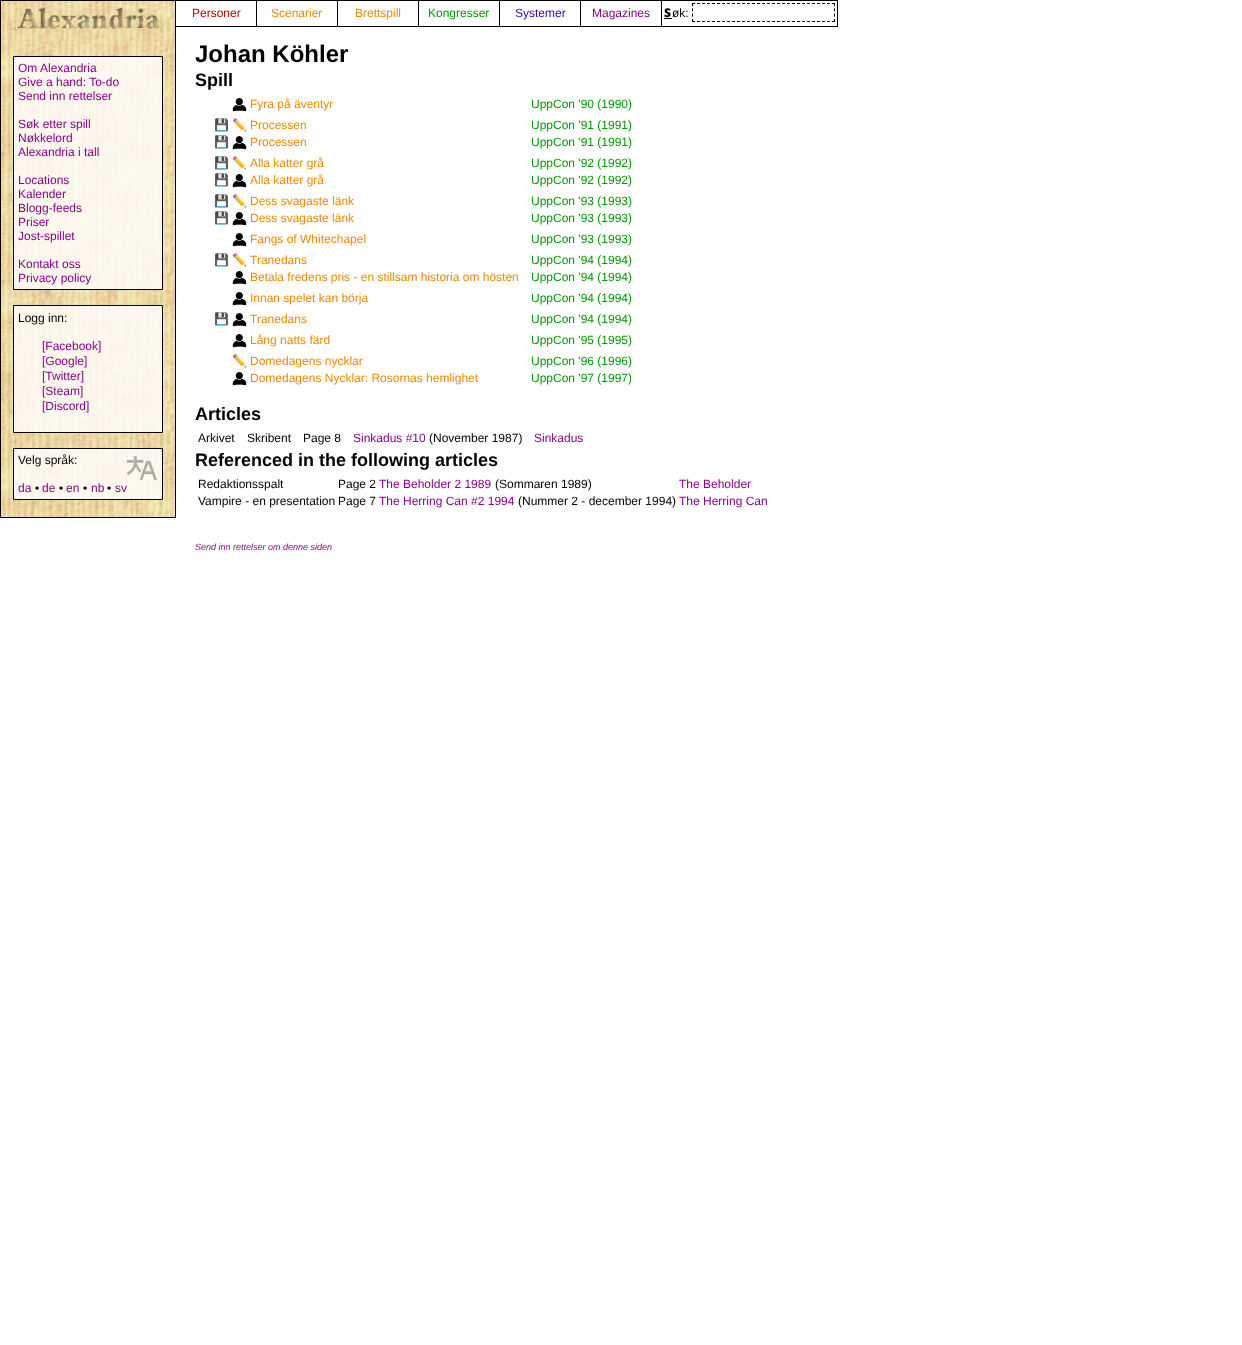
<!DOCTYPE html>
<meta charset="utf-8">
<style>body { margin: 0 } canvas { display: block }</style>
<canvas id="canvas" width="1242" height="1345"></canvas>
<script type="module">
  const canvas = document.getElementById("canvas");
  const ctx = canvas.getContext("2d");
  ctx.miterLimit = 4;
  ctx.fontKerning = "normal";
  async function loadImage(src) {
    const img = new Image();
    img.src = src;
    await img.decode();
    return img;
  }

  ctx.fillStyle = "#ffffff";
  ctx.fillRect(0, 0, 1242, 1345);
  ctx.drawImage(await loadImage("img1.png"), 1, 1, 174, 516);
  ctx.strokeStyle = "#000000";
  ctx.strokeRect(0.5, 0.5, 175, 517);
  ctx.strokeRect(175.5, 0.5, 662, 26);
  ctx.fillStyle = "#000000";
  ctx.fillRect(256, 1, 1, 25);
  ctx.font = "12px Liberation Sans";
  ctx.fillStyle = "#bb0000";
  ctx.fillText("Personer", 192, 17);
  ctx.fillStyle = "#000000";
  ctx.fillRect(337, 1, 1, 25);
  ctx.fillStyle = "#ee8800";
  ctx.fillText("Scenarier", 271, 17);
  ctx.fillStyle = "#000000";
  ctx.fillRect(418, 1, 1, 25);
  ctx.fillStyle = "#ee8800";
  ctx.fillText("Brettspill", 355, 17);
  ctx.fillStyle = "#000000";
  ctx.fillRect(499, 1, 1, 25);
  ctx.fillStyle = "#009900";
  ctx.fillText("Kongresser", 428, 17);
  ctx.fillStyle = "#000000";
  ctx.fillRect(580, 1, 1, 25);
  ctx.fillStyle = "#3300cc";
  ctx.fillText("Systemer", 515, 17);
  ctx.fillStyle = "#000000";
  ctx.fillRect(661, 1, 1, 25);
  ctx.fillStyle = "#880088";
  ctx.fillText("Magazines", 592, 17);
  ctx.font = "900 12px Noto Sans";
  ctx.fillStyle = "#000000";
  ctx.fillText("S", 664, 17);
  ctx.fillRect(664, 18, 8, 1);
  ctx.font = "12px Liberation Sans";
  ctx.fillText("øk:", 672, 17);
  ctx.beginPath();
  ctx.moveTo(692, 3.5);
  ctx.lineTo(835, 3.5);
  ctx.setLineDash([3, 2]);
  ctx.stroke();
  ctx.beginPath();
  ctx.moveTo(834.5, 3);
  ctx.lineTo(834.5, 22);
  ctx.setLineDash([3, 2.33]);
  ctx.stroke();
  ctx.beginPath();
  ctx.moveTo(692, 21.5);
  ctx.lineTo(835, 21.5);
  ctx.setLineDash([3, 2]);
  ctx.stroke();
  ctx.beginPath();
  ctx.moveTo(692.5, 3);
  ctx.lineTo(692.5, 22);
  ctx.setLineDash([3, 2.33]);
  ctx.stroke();
  ctx.drawImage(await loadImage("img2.png"), 16, 7, 148, 25);
  ctx.fillStyle = "rgba(255, 255, 255, 0.8)";
  ctx.beginPath();
  ctx.rect(13.5, 56.5, 149, 233);
  ctx.fill();
  ctx.setLineDash([]);
  ctx.stroke();
  ctx.fillStyle = "#880088";
  ctx.fillText("Om Alexandria", 18, 72);
  ctx.fillText("Give a hand: To-do", 18, 86);
  ctx.fillText("Send inn rettelser", 18, 100);
  ctx.fillText("Søk etter spill", 18, 128);
  ctx.fillText("Nøkkelord", 18, 142);
  ctx.fillText("Alexandria i tall", 18, 156);
  ctx.fillText("Locations", 18, 184);
  ctx.fillText("Kalender", 18, 198);
  ctx.fillText("Blogg-feeds", 18, 212);
  ctx.fillText("Priser", 18, 226);
  ctx.fillText("Jost-spillet", 18, 240);
  ctx.fillText("Kontakt oss", 18, 268);
  ctx.fillText("Privacy policy", 18, 282);
  ctx.fillStyle = "rgba(255, 255, 255, 0.8)";
  ctx.beginPath();
  ctx.rect(13.5, 305.5, 149, 127);
  ctx.fill();
  ctx.stroke();
  ctx.fillStyle = "#000000";
  ctx.fillText("Logg inn:", 18, 322);
  ctx.fillStyle = "#880088";
  ctx.fillText("[Facebook]", 42, 350);
  ctx.fillText("[Google]", 42, 365);
  ctx.fillText("[Twitter]", 42, 380);
  ctx.fillText("[Steam]", 42, 395);
  ctx.fillText("[Discord]", 42, 410);
  ctx.fillStyle = "rgba(255, 255, 255, 0.8)";
  ctx.beginPath();
  ctx.rect(13.5, 448.5, 149, 51);
  ctx.fill();
  ctx.stroke();
  ctx.fillStyle = "#000000";
  ctx.fillText("Velg språk:", 18, 464);
  ctx.drawImage(await loadImage("img3.png"), 127, 456, 30, 24);
  ctx.fillStyle = "#880088";
  ctx.fillText("da", 18, 492);
  ctx.fillStyle = "#000000";
  ctx.fillText("•", 35, 492);
  ctx.fillStyle = "#880088";
  ctx.fillText("de", 42, 492);
  ctx.fillStyle = "#000000";
  ctx.fillText("•", 59, 492);
  ctx.fillStyle = "#880088";
  ctx.fillText("en", 66, 492);
  ctx.fillStyle = "#000000";
  ctx.fillText("•", 83, 492);
  ctx.fillStyle = "#880088";
  ctx.fillText("nb", 91, 492);
  ctx.fillStyle = "#000000";
  ctx.fillText("•", 107, 492);
  ctx.fillStyle = "#880088";
  ctx.fillText("sv", 115, 492);
  ctx.font = "bold 24px Liberation Sans";
  ctx.fillStyle = "#000000";
  ctx.fillText("Johan Köhler", 195, 62);
  ctx.font = "bold 18px Liberation Sans";
  ctx.fillText("Spill", 195, 86);
  ctx.drawImage(await loadImage("img4.png"), 232, 98, 15, 14);
  ctx.font = "12px Liberation Sans";
  ctx.fillStyle = "#ee8800";
  ctx.fillText("Fyra på äventyr", 250, 108);
  ctx.fillStyle = "#009900";
  ctx.fillText("UppCon '90 (1990)", 531, 108);
  ctx.font = "12px Noto Color Emoji";
  ctx.fillStyle = "#880088";
  ctx.fillText("💾", 214, 129);
  ctx.fillStyle = "#000000";
  ctx.fillText("✏️", 232, 129);
  ctx.font = "12px Liberation Sans";
  ctx.fillStyle = "#ee8800";
  ctx.fillText("Processen", 250, 129);
  ctx.fillStyle = "#009900";
  ctx.fillText("UppCon '91 (1991)", 531, 129);
  ctx.font = "12px Noto Color Emoji";
  ctx.fillStyle = "#880088";
  ctx.fillText("💾", 214, 146);
  ctx.drawImage(await loadImage("img4.png"), 232, 136, 15, 14);
  ctx.font = "12px Liberation Sans";
  ctx.fillStyle = "#ee8800";
  ctx.fillText("Processen", 250, 146);
  ctx.fillStyle = "#009900";
  ctx.fillText("UppCon '91 (1991)", 531, 146);
  ctx.font = "12px Noto Color Emoji";
  ctx.fillStyle = "#880088";
  ctx.fillText("💾", 214, 167);
  ctx.fillStyle = "#000000";
  ctx.fillText("✏️", 232, 167);
  ctx.font = "12px Liberation Sans";
  ctx.fillStyle = "#ee8800";
  ctx.fillText("Alla katter grå", 250, 167);
  ctx.fillStyle = "#009900";
  ctx.fillText("UppCon '92 (1992)", 531, 167);
  ctx.font = "12px Noto Color Emoji";
  ctx.fillStyle = "#880088";
  ctx.fillText("💾", 214, 184);
  ctx.drawImage(await loadImage("img4.png"), 232, 174, 15, 14);
  ctx.font = "12px Liberation Sans";
  ctx.fillStyle = "#ee8800";
  ctx.fillText("Alla katter grå", 250, 184);
  ctx.fillStyle = "#009900";
  ctx.fillText("UppCon '92 (1992)", 531, 184);
  ctx.font = "12px Noto Color Emoji";
  ctx.fillStyle = "#880088";
  ctx.fillText("💾", 214, 205);
  ctx.fillStyle = "#000000";
  ctx.fillText("✏️", 232, 205);
  ctx.font = "12px Liberation Sans";
  ctx.fillStyle = "#ee8800";
  ctx.fillText("Dess svagaste länk", 250, 205);
  ctx.fillStyle = "#009900";
  ctx.fillText("UppCon '93 (1993)", 531, 205);
  ctx.font = "12px Noto Color Emoji";
  ctx.fillStyle = "#880088";
  ctx.fillText("💾", 214, 222);
  ctx.drawImage(await loadImage("img4.png"), 232, 212, 15, 14);
  ctx.font = "12px Liberation Sans";
  ctx.fillStyle = "#ee8800";
  ctx.fillText("Dess svagaste länk", 250, 222);
  ctx.fillStyle = "#009900";
  ctx.fillText("UppCon '93 (1993)", 531, 222);
  ctx.drawImage(await loadImage("img4.png"), 232, 233, 15, 14);
  ctx.fillStyle = "#ee8800";
  ctx.fillText("Fangs of Whitechapel", 250, 243);
  ctx.fillStyle = "#009900";
  ctx.fillText("UppCon '93 (1993)", 531, 243);
  ctx.font = "12px Noto Color Emoji";
  ctx.fillStyle = "#880088";
  ctx.fillText("💾", 214, 264);
  ctx.fillStyle = "#000000";
  ctx.fillText("✏️", 232, 264);
  ctx.font = "12px Liberation Sans";
  ctx.fillStyle = "#ee8800";
  ctx.fillText("Tranedans", 250, 264);
  ctx.fillStyle = "#009900";
  ctx.fillText("UppCon '94 (1994)", 531, 264);
  ctx.drawImage(await loadImage("img4.png"), 232, 271, 15, 14);
  ctx.fillStyle = "#ee8800";
  ctx.fillText("Betala fredens pris - en stillsam historia om hösten", 250, 281);
  ctx.fillStyle = "#009900";
  ctx.fillText("UppCon '94 (1994)", 531, 281);
  ctx.drawImage(await loadImage("img4.png"), 232, 292, 15, 14);
  ctx.fillStyle = "#ee8800";
  ctx.fillText("Innan spelet kan börja", 250, 302);
  ctx.fillStyle = "#009900";
  ctx.fillText("UppCon '94 (1994)", 531, 302);
  ctx.font = "12px Noto Color Emoji";
  ctx.fillStyle = "#880088";
  ctx.fillText("💾", 214, 323);
  ctx.drawImage(await loadImage("img4.png"), 232, 313, 15, 14);
  ctx.font = "12px Liberation Sans";
  ctx.fillStyle = "#ee8800";
  ctx.fillText("Tranedans", 250, 323);
  ctx.fillStyle = "#009900";
  ctx.fillText("UppCon '94 (1994)", 531, 323);
  ctx.drawImage(await loadImage("img4.png"), 232, 334, 15, 14);
  ctx.fillStyle = "#ee8800";
  ctx.fillText("Lång natts färd", 250, 344);
  ctx.fillStyle = "#009900";
  ctx.fillText("UppCon '95 (1995)", 531, 344);
  ctx.font = "12px Noto Color Emoji";
  ctx.fillStyle = "#000000";
  ctx.fillText("✏️", 232, 365);
  ctx.font = "12px Liberation Sans";
  ctx.fillStyle = "#ee8800";
  ctx.fillText("Domedagens nycklar", 250, 365);
  ctx.fillStyle = "#009900";
  ctx.fillText("UppCon '96 (1996)", 531, 365);
  ctx.drawImage(await loadImage("img4.png"), 232, 372, 15, 14);
  ctx.fillStyle = "#ee8800";
  ctx.fillText("Domedagens Nycklar: Rosornas hemlighet", 250, 382);
  ctx.fillStyle = "#009900";
  ctx.fillText("UppCon '97 (1997)", 531, 382);
  ctx.font = "bold 18px Liberation Sans";
  ctx.fillStyle = "#000000";
  ctx.fillText("Articles", 195, 420);
  ctx.font = "12px Liberation Sans";
  ctx.fillText("Arkivet", 198, 442);
  ctx.fillText("Skribent", 247, 442);
  ctx.fillText("Page 8", 303, 442);
  ctx.fillStyle = "#880088";
  ctx.fillText("Sinkadus #10", 353, 442);
  ctx.fillStyle = "#000000";
  ctx.fillText("(November 1987)", 429, 442);
  ctx.fillStyle = "#880088";
  ctx.fillText("Sinkadus", 534, 442);
  ctx.font = "bold 18px Liberation Sans";
  ctx.fillStyle = "#000000";
  ctx.fillText("Referenced in the following articles", 195, 466);
  ctx.font = "12px Liberation Sans";
  ctx.fillText("Redaktionsspalt", 198, 488);
  ctx.fillText("Page 2", 338, 488);
  ctx.fillStyle = "#880088";
  ctx.fillText("The Beholder 2 1989", 379, 488);
  ctx.fillStyle = "#000000";
  ctx.fillText("(Sommaren 1989)", 495, 488);
  ctx.fillStyle = "#880088";
  ctx.fillText("The Beholder", 679, 488);
  ctx.fillStyle = "#000000";
  ctx.fillText("Vampire - en presentation", 198, 505);
  ctx.fillText("Page 7", 338, 505);
  ctx.fillStyle = "#880088";
  ctx.fillText("The Herring Can #2 1994", 379, 505);
  ctx.fillStyle = "#000000";
  ctx.fillText("(Nummer 2 - december 1994)", 518, 505);
  ctx.fillStyle = "#880088";
  ctx.fillText("The Herring Can", 679, 505);
  ctx.font = "italic 9px Liberation Sans";
  ctx.fillText("Send inn rettelser om denne siden", 195, 550);
</script>
